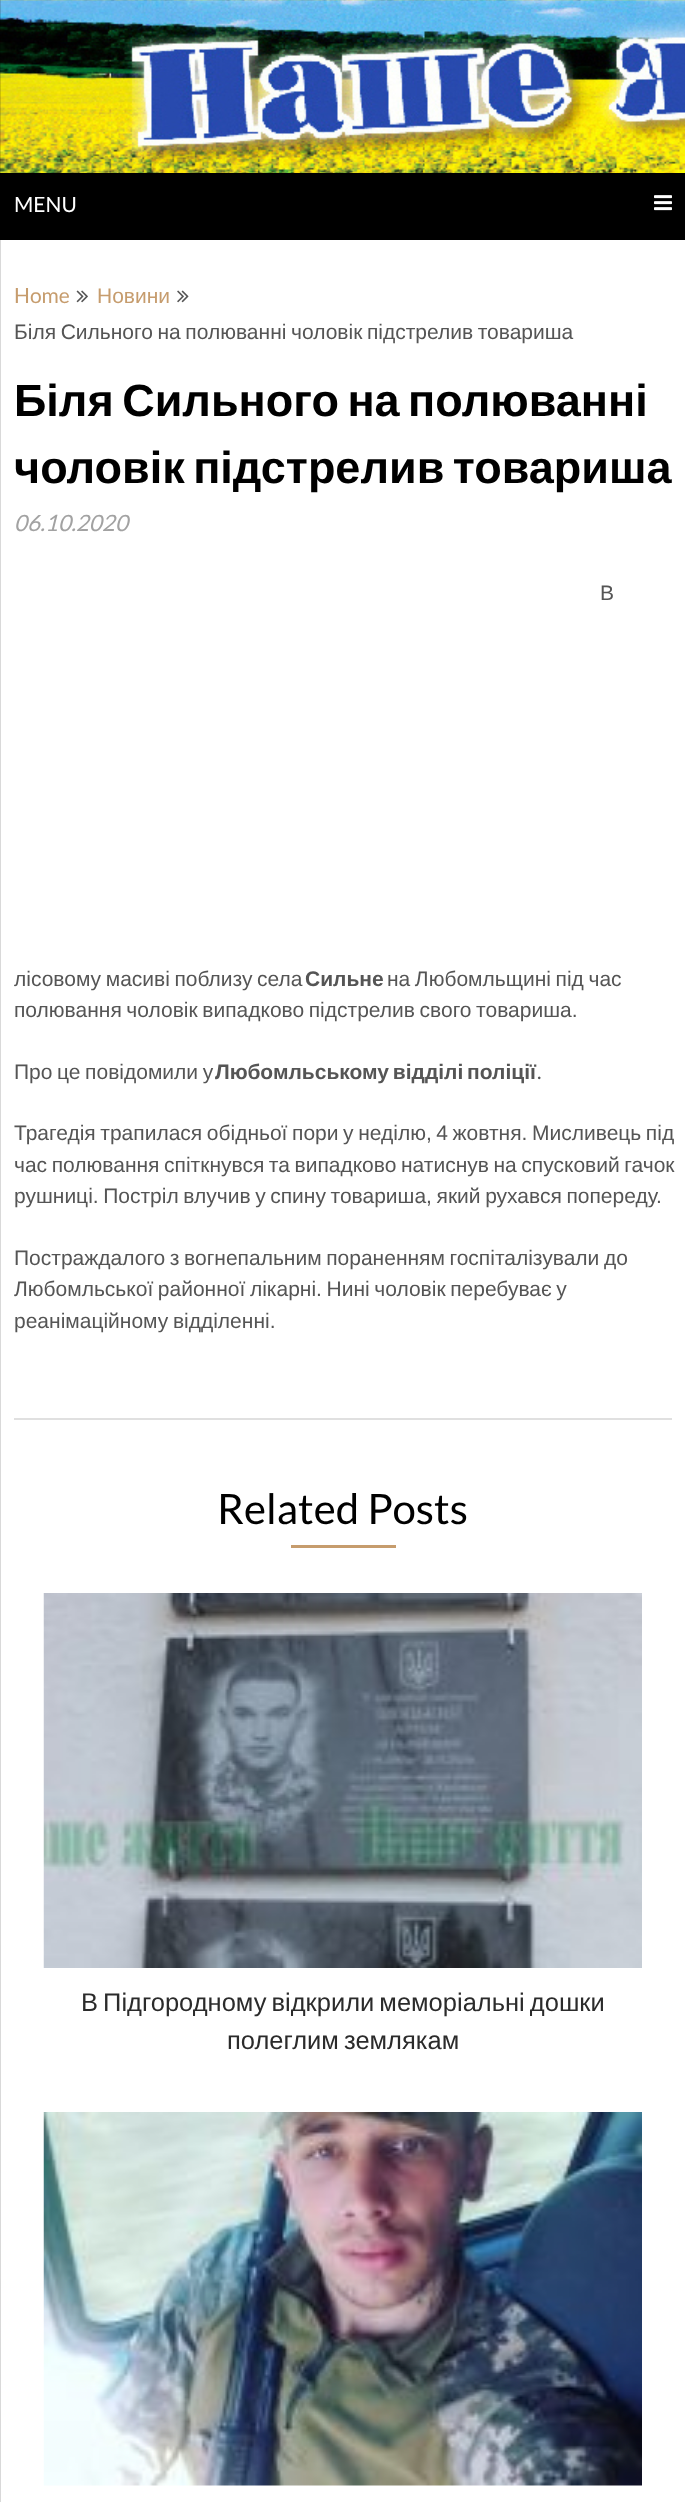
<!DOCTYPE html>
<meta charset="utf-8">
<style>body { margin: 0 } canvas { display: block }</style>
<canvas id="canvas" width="685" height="2502"></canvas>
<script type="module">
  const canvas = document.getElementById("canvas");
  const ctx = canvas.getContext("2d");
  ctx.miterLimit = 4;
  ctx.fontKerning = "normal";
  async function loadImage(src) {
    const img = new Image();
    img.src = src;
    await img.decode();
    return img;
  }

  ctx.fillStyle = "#ffffff";
  ctx.fillRect(0, 0, 685, 2502);
  ctx.drawImage(await loadImage("img1.png"), 0, 0, 685, 173);
  ctx.fillStyle = "#000000";
  ctx.fillRect(0, 173, 685, 67);
  ctx.fillStyle = "rgba(0, 0, 0, 0.15)";
  ctx.fillRect(0, 0, 1, 2502);
  ctx.font = "21px Lato";
  ctx.fillStyle = "#ffffff";
  ctx.fillText("MENU", 14, 212);
  ctx.drawImage(await loadImage("img2.png"), 654, 195, 18, 16);
  ctx.fillStyle = "#c69c6d";
  ctx.fillText("Home", 14, 303);
  ctx.drawImage(await loadImage("img3.png"), 76, 290, 12, 13);
  ctx.font = "21px Liberation Sans";
  ctx.fillText("Новини", 97, 303);
  ctx.drawImage(await loadImage("img4.png"), 177, 290, 12, 13);
  ctx.wordSpacing = "-1.25px";
  ctx.fillStyle = "#555555";
  ctx.fillText("Біля Сильного на полюванні чоловік підстрелив товариша", 14, 339);
  ctx.wordSpacing = "-4px";
  ctx.font = "bold 45px Liberation Sans";
  ctx.fillStyle = "#000000";
  ctx.fillText("Біля Сильного на полюванні", 14, 416);
  ctx.fillText("чоловік підстрелив товариша", 14, 483);
  ctx.wordSpacing = "0px";
  ctx.font = "italic 22.5px Lato";
  ctx.fillStyle = "#a2a2a2";
  ctx.fillText("06.10.2020", 14, 531);
  ctx.font = "21px Liberation Sans";
  ctx.fillStyle = "#555555";
  ctx.fillText("В", 600, 600);
  ctx.wordSpacing = "-1.25px";
  ctx.fillText("лісовому масиві поблизу села", 14, 986);
  ctx.wordSpacing = "0px";
  ctx.font = "bold 21px Liberation Sans";
  ctx.fillText("Сильне", 305, 986);
  ctx.wordSpacing = "-1.25px";
  ctx.font = "21px Liberation Sans";
  ctx.fillText("на Любомльщині під час", 387, 986);
  ctx.fillText("полювання чоловік випадково підстрелив свого товариша.", 14, 1017);
  ctx.fillText("Про це повідомили у", 14, 1079);
  ctx.wordSpacing = "-2px";
  ctx.font = "bold 21px Liberation Sans";
  ctx.fillText("Любомльському відділі поліції", 215, 1079);
  ctx.wordSpacing = "0px";
  ctx.font = "21px Lato";
  ctx.fillText(".", 537, 1079);
  ctx.wordSpacing = "-1.25px";
  ctx.font = "21px Liberation Sans";
  ctx.fillText("Трагедія трапилася обідньої пори у неділю, 4 жовтня. Мисливець під", 14, 1140);
  ctx.fillText("час полювання спіткнувся та випадково натиснув на спусковий гачок", 14, 1172);
  ctx.fillText("рушниці. Постріл влучив у спину товариша, який рухався попереду.", 14, 1203);
  ctx.fillText("Постраждалого з вогнепальним пораненням госпіталізували до", 14, 1265);
  ctx.fillText("Любомльської районної лікарні. Нині чоловік перебуває у", 14, 1296);
  ctx.fillText("реанімаційному відділенні.", 14, 1328);
  ctx.fillStyle = "#e0e0e0";
  ctx.fillRect(14, 1418, 658, 2);
  ctx.wordSpacing = "0px";
  ctx.font = "42px Lato";
  ctx.fillStyle = "#000000";
  ctx.fillText("Related Posts", 217, 1524);
  ctx.fillStyle = "#c69c6d";
  ctx.fillRect(291, 1545, 105, 3);
  ctx.drawImage(await loadImage("img5.png"), 43, 1593, 599, 375);
  ctx.wordSpacing = "-2px";
  ctx.font = "25.5px Liberation Sans";
  ctx.fillStyle = "#2b2b2b";
  ctx.fillText("В Підгородному відкрили меморіальні дошки", 81, 2011);
  ctx.fillText("полеглим землякам", 227, 2049);
  ctx.drawImage(await loadImage("img6.png"), 43, 2112, 599, 374);
</script>
